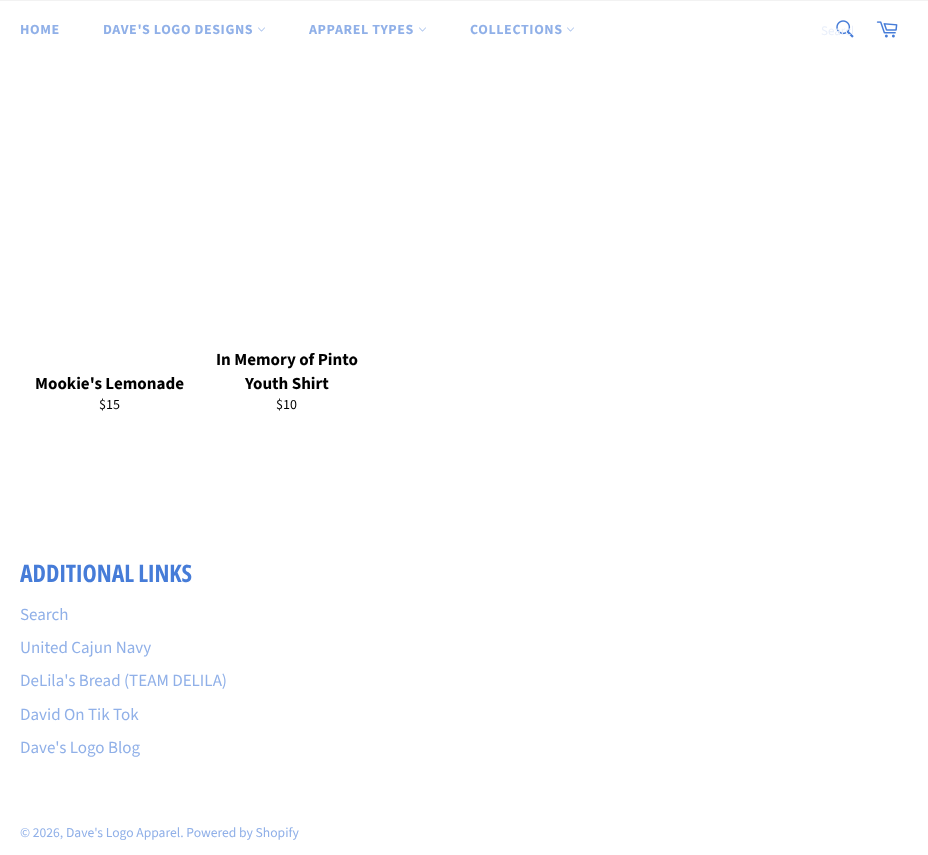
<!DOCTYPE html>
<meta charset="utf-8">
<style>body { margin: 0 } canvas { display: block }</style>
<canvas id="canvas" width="928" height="855"></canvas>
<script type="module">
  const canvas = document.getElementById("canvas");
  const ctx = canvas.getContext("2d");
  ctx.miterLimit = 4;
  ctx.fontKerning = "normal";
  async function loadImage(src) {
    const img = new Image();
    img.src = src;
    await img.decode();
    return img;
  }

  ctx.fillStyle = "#ffffff";
  ctx.fillRect(0, 0, 928, 855);
  ctx.fillStyle = "#f2f2f2";
  ctx.fillRect(0, 0, 928, 1);
  ctx.letterSpacing = "0.6px";
  ctx.font = "bold 14px Source Sans Pro";
  ctx.fillStyle = "#90b0e8";
  ctx.fillText("HOME", 20, 34);
  ctx.fillText("DAVE'S LOGO DESIGNS", 103, 34);
  ctx.drawImage(await loadImage("img1.png"), 258, 27, 7, 5);
  ctx.fillText("APPAREL TYPES", 309, 34);
  ctx.drawImage(await loadImage("img1.png"), 419, 27, 7, 5);
  ctx.fillText("COLLECTIONS", 470, 34);
  ctx.drawImage(await loadImage("img1.png"), 567, 27, 7, 5);
  ctx.drawImage(await loadImage("img2.png"), 836, 20, 18, 18);
  ctx.save();
  ctx.beginPath();
  ctx.rect(821, 22, 32, 18);
  ctx.clip();
  ctx.letterSpacing = "0px";
  ctx.font = "13px Source Sans Pro";
  ctx.fillStyle = "#e9effa";
  ctx.fillText("Search", 821, 35);
  ctx.restore();
  ctx.drawImage(await loadImage("img3.png"), 876, 21, 22, 17);
  ctx.letterSpacing = "0px";
  ctx.font = "bold 17px Source Sans Pro";
  ctx.fillStyle = "#000000";
  ctx.fillText("Mookie's Lemonade", 35, 389);
  ctx.font = "14px Source Sans Pro";
  ctx.fillText("$15", 99, 409);
  ctx.font = "bold 17px Source Sans Pro";
  ctx.fillText("In Memory of Pinto", 216, 365);
  ctx.fillText("Youth Shirt", 245, 389);
  ctx.font = "14px Source Sans Pro";
  ctx.fillText("$10", 276, 409);
  ctx.font = "bold 24px Open Sans Condensed";
  ctx.fillStyle = "#467cd8";
  ctx.fillText("ADDITIONAL LINKS", 20, 582);
  ctx.font = "17px Source Sans Pro";
  ctx.fillStyle = "#90b0e8";
  ctx.fillText("Search", 20, 620);
  ctx.fillText("United Cajun Navy", 20, 653);
  ctx.fillText("DeLila's Bread (TEAM DELILA)", 20, 686);
  ctx.fillText("David On Tik Tok", 20, 720);
  ctx.fillText("Dave's Logo Blog", 20, 753);
  ctx.font = "13.6px Source Sans Pro";
  ctx.fillText("© 2026, Dave's Logo Apparel. Powered by Shopify", 20, 837);
</script>
